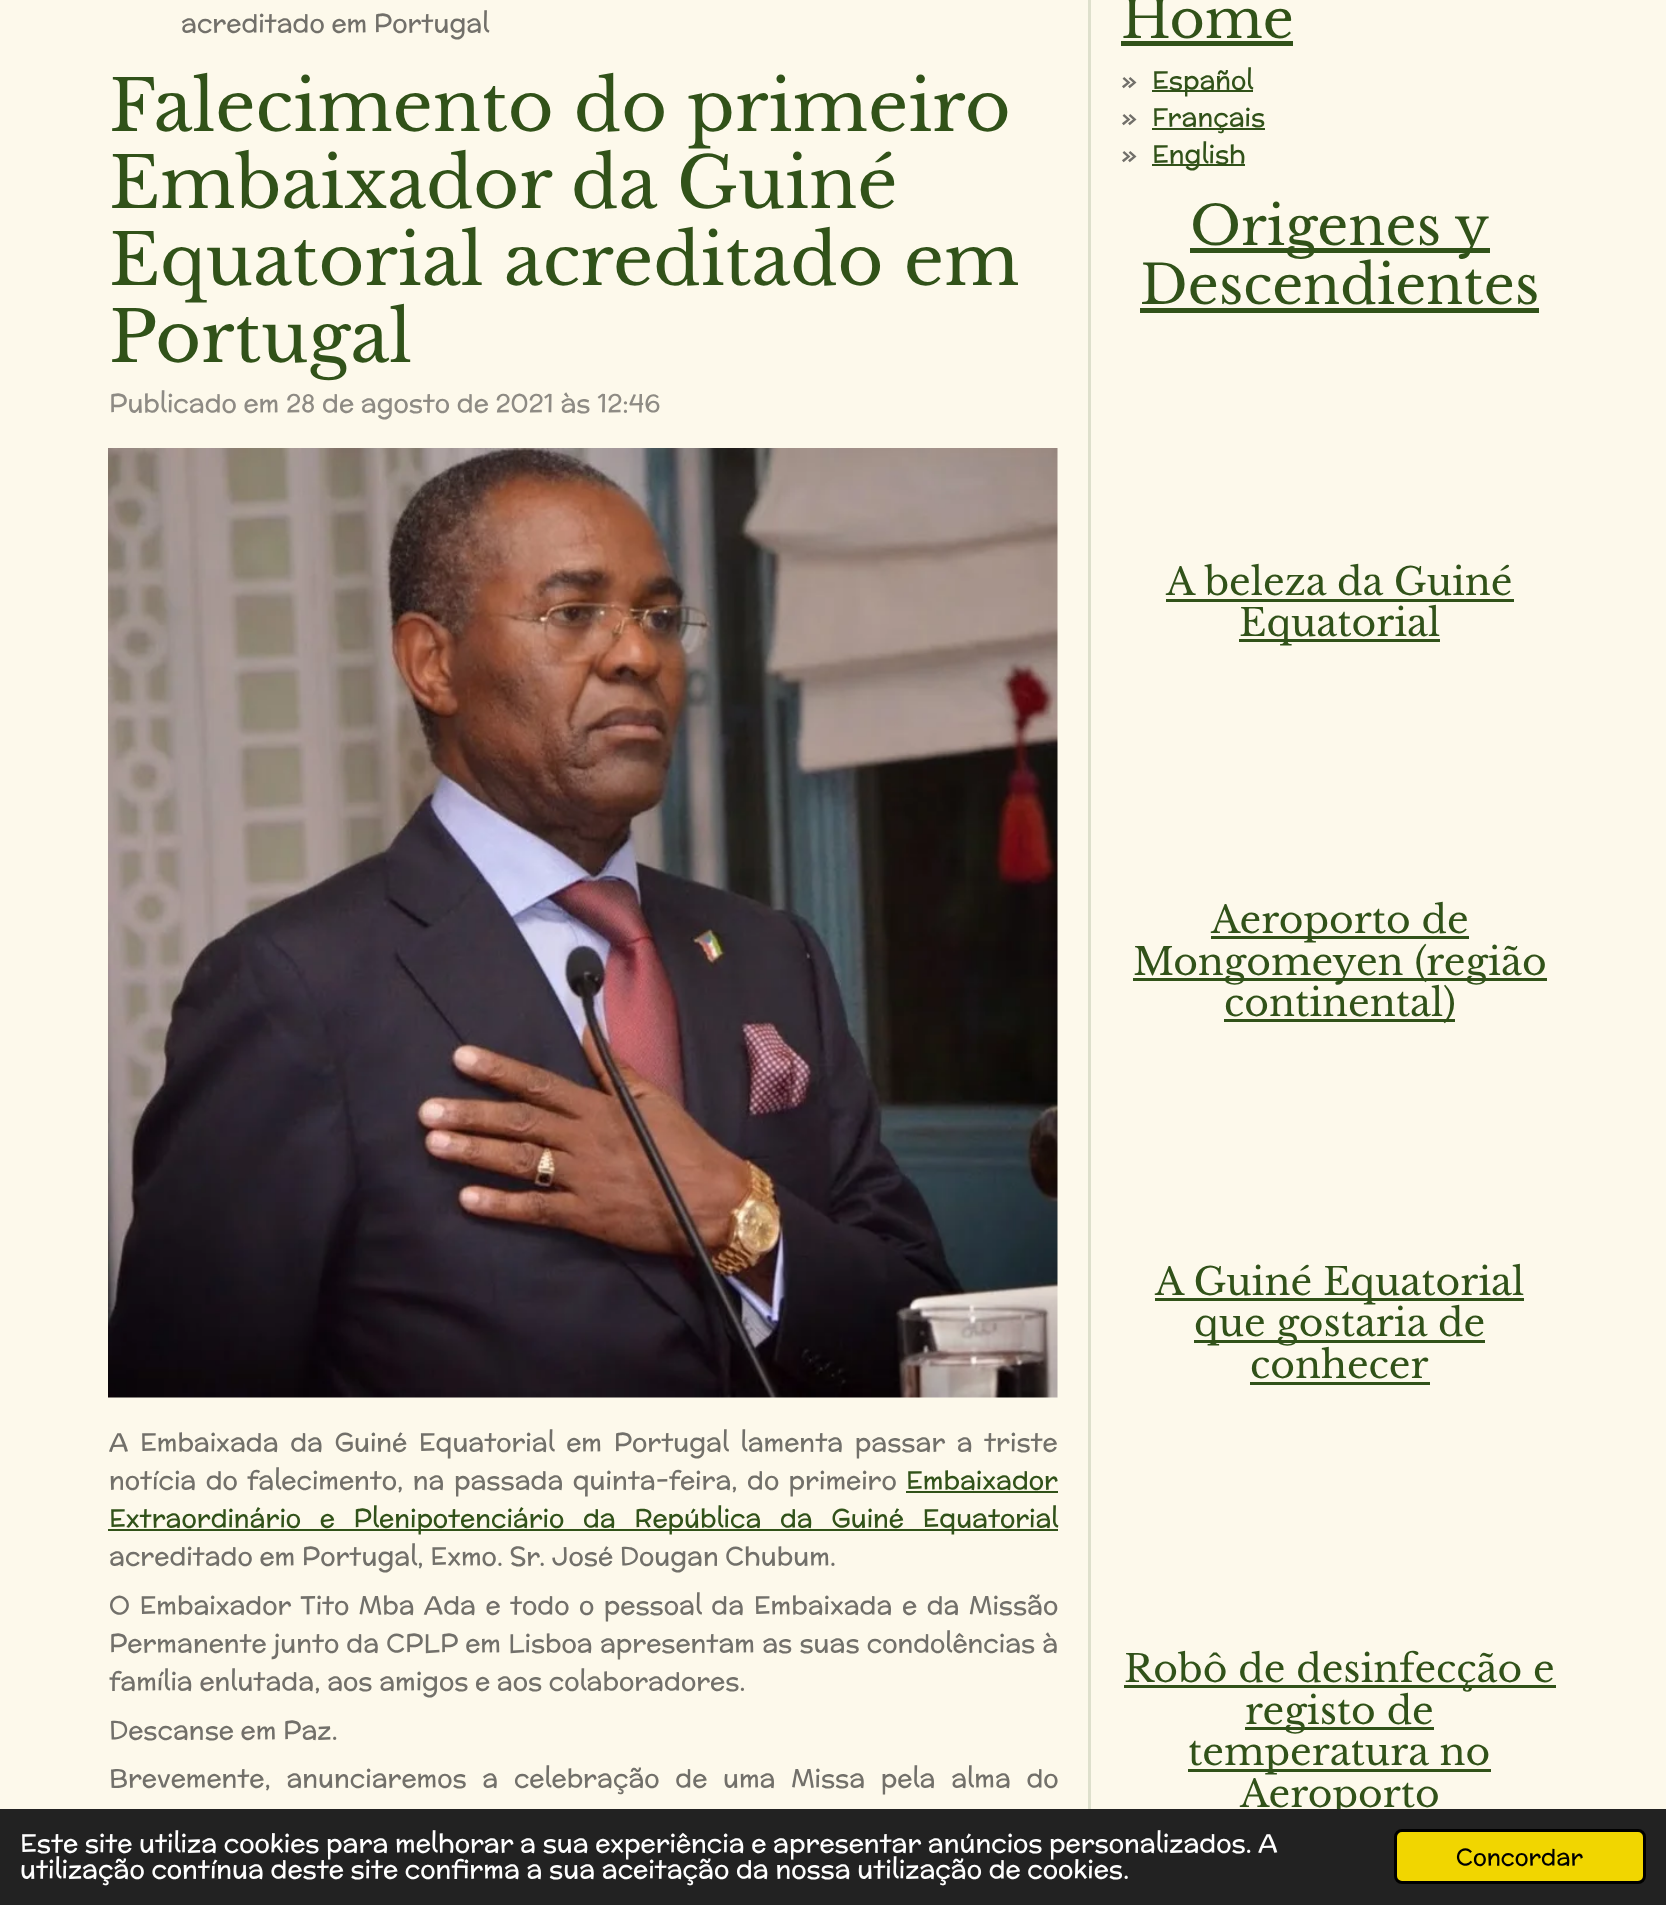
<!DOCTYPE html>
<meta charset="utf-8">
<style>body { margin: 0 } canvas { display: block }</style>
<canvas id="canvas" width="1666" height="1905"></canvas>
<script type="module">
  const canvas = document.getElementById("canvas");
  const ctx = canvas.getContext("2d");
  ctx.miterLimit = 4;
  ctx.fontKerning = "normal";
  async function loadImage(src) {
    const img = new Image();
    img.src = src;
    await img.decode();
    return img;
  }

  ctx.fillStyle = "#fdf9eb";
  ctx.fillRect(0, 0, 1666, 1905);
  ctx.font = "25.5px McLaren";
  ctx.fillStyle = "#72706a";
  ctx.fillText("acreditado em Portugal", 181, 32);
  ctx.font = "70.25px Libre Baskerville";
  ctx.fillStyle = "#315219";
  ctx.fillText("Falecimento do primeiro", 109, 131);
  ctx.fillText("Embaixador da Guiné", 109, 208);
  ctx.fillText("Equatorial acreditado em", 109, 285);
  ctx.fillText("Portugal", 109, 362);
  ctx.font = "25.5px McLaren";
  ctx.fillStyle = "#8e8b84";
  ctx.fillText("Publicado em 28 de agosto de 2021 às 12:46", 109, 412);
  ctx.drawImage(await loadImage("img1.png"), 108, 448, 950, 950);
  ctx.wordSpacing = "5px";
  ctx.fillStyle = "#72706a";
  ctx.fillText("A Embaixada da Guiné Equatorial em Portugal lamenta passar a triste", 109, 1451);
  ctx.wordSpacing = "2.75px";
  ctx.fillText("notícia do falecimento, na passada quinta-feira, do primeiro", 109, 1489);
  ctx.wordSpacing = "0px";
  ctx.fillStyle = "#315219";
  ctx.fillText("Embaixador", 906, 1489);
  ctx.fillRect(906, 1491, 152, 2);
  ctx.fillRect(108, 1529, 950, 2);
  ctx.wordSpacing = "12px";
  ctx.fillText("Extraordinário e Plenipotenciário da República da Guiné Equatorial", 109, 1527);
  ctx.wordSpacing = "0px";
  ctx.fillStyle = "#72706a";
  ctx.fillText("acreditado em Portugal, Exmo. Sr. José Dougan Chubum.", 109, 1565);
  ctx.wordSpacing = "2.9px";
  ctx.fillText("O Embaixador Tito Mba Ada e todo o pessoal da Embaixada e da Missão", 109, 1614);
  ctx.wordSpacing = "0.5px";
  ctx.fillText("Permanente junto da CPLP em Lisboa apresentam as suas condolências à", 109, 1652);
  ctx.wordSpacing = "0px";
  ctx.fillText("família enlutada, aos amigos e aos colaboradores.", 109, 1690);
  ctx.fillText("Descanse em Paz.", 109, 1739);
  ctx.wordSpacing = "9px";
  ctx.fillText("Brevemente, anunciaremos a celebração de uma Missa pela alma do", 109, 1787);
  ctx.fillStyle = "#dee0cc";
  ctx.fillRect(1088, 0, 3, 1809);
  ctx.wordSpacing = "0px";
  ctx.font = "54px Libre Baskerville";
  ctx.fillStyle = "#315219";
  ctx.fillText("Home", 1121, 38);
  ctx.fillRect(1121, 41, 172, 5);
  ctx.font = "25.5px McLaren";
  ctx.fillStyle = "#72706a";
  ctx.fillText("»", 1121, 89);
  ctx.fillStyle = "#315219";
  ctx.fillRect(1152, 90, 101, 2);
  ctx.fillText("Español", 1152, 89);
  ctx.fillStyle = "#72706a";
  ctx.fillText("»", 1121, 126);
  ctx.fillStyle = "#315219";
  ctx.fillRect(1152, 128, 113, 2);
  ctx.fillText("Français", 1152, 126);
  ctx.fillStyle = "#72706a";
  ctx.fillText("»", 1121, 163);
  ctx.fillStyle = "#315219";
  ctx.fillRect(1152, 164, 93, 2);
  ctx.fillText("English", 1152, 163);
  ctx.fillRect(1190, 248, 300, 5);
  ctx.font = "54px Libre Baskerville";
  ctx.fillText("Origenes y", 1190, 245);
  ctx.fillText("Descendientes", 1140, 304);
  ctx.fillRect(1140, 308, 399, 5);
  ctx.font = "37.75px Libre Baskerville";
  ctx.fillText("A beleza da Guiné", 1166, 595);
  ctx.fillRect(1166, 599, 348, 3);
  ctx.fillRect(1239, 639, 201, 3);
  ctx.fillText("Equatorial", 1239, 636);
  ctx.fillRect(1211, 936, 258, 3);
  ctx.fillText("Aeroporto de", 1211, 933);
  ctx.fillRect(1133, 978, 414, 3);
  ctx.fillText("Mongomeyen (região", 1133, 975);
  ctx.fillRect(1224, 1019, 231, 3);
  ctx.fillText("continental)", 1224, 1016);
  ctx.fillRect(1155, 1298, 369, 3);
  ctx.fillText("A Guiné Equatorial", 1155, 1295);
  ctx.fillRect(1194, 1340, 291, 3);
  ctx.fillText("que gostaria de", 1194, 1336);
  ctx.fillText("conhecer", 1250, 1378);
  ctx.fillRect(1250, 1382, 180, 3);
  ctx.fillRect(1124, 1685, 432, 3);
  ctx.fillText("Robô de desinfecção e", 1124, 1682);
  ctx.fillRect(1245, 1727, 189, 3);
  ctx.fillText("registo de", 1245, 1724);
  ctx.fillRect(1188, 1769, 303, 3);
  ctx.fillText("temperatura no", 1188, 1765);
  ctx.fillText("Aeroporto", 1240, 1807);
  ctx.fillStyle = "#222222";
  ctx.fillRect(0, 1809, 1666, 96);
  ctx.font = "25.5px McLaren";
  ctx.fillStyle = "#ffffff";
  ctx.fillText("Este site utiliza cookies para melhorar a sua experiência e apresentar anúncios personalizados. A", 20, 1852);
  ctx.fillText("utilização contínua deste site confirma a sua aceitação da nossa utilização de cookies.", 20, 1878);
  ctx.fillStyle = "#f1d600";
  ctx.beginPath();
  ctx.roundRect(1395.5, 1830.5, 249, 52, 6.5);
  ctx.fill();
  ctx.strokeStyle = "#000000";
  ctx.lineWidth = 3;
  ctx.stroke();
  ctx.font = "23px McLaren";
  ctx.fillStyle = "#000000";
  ctx.fillText("Concordar", 1456, 1865);
</script>
